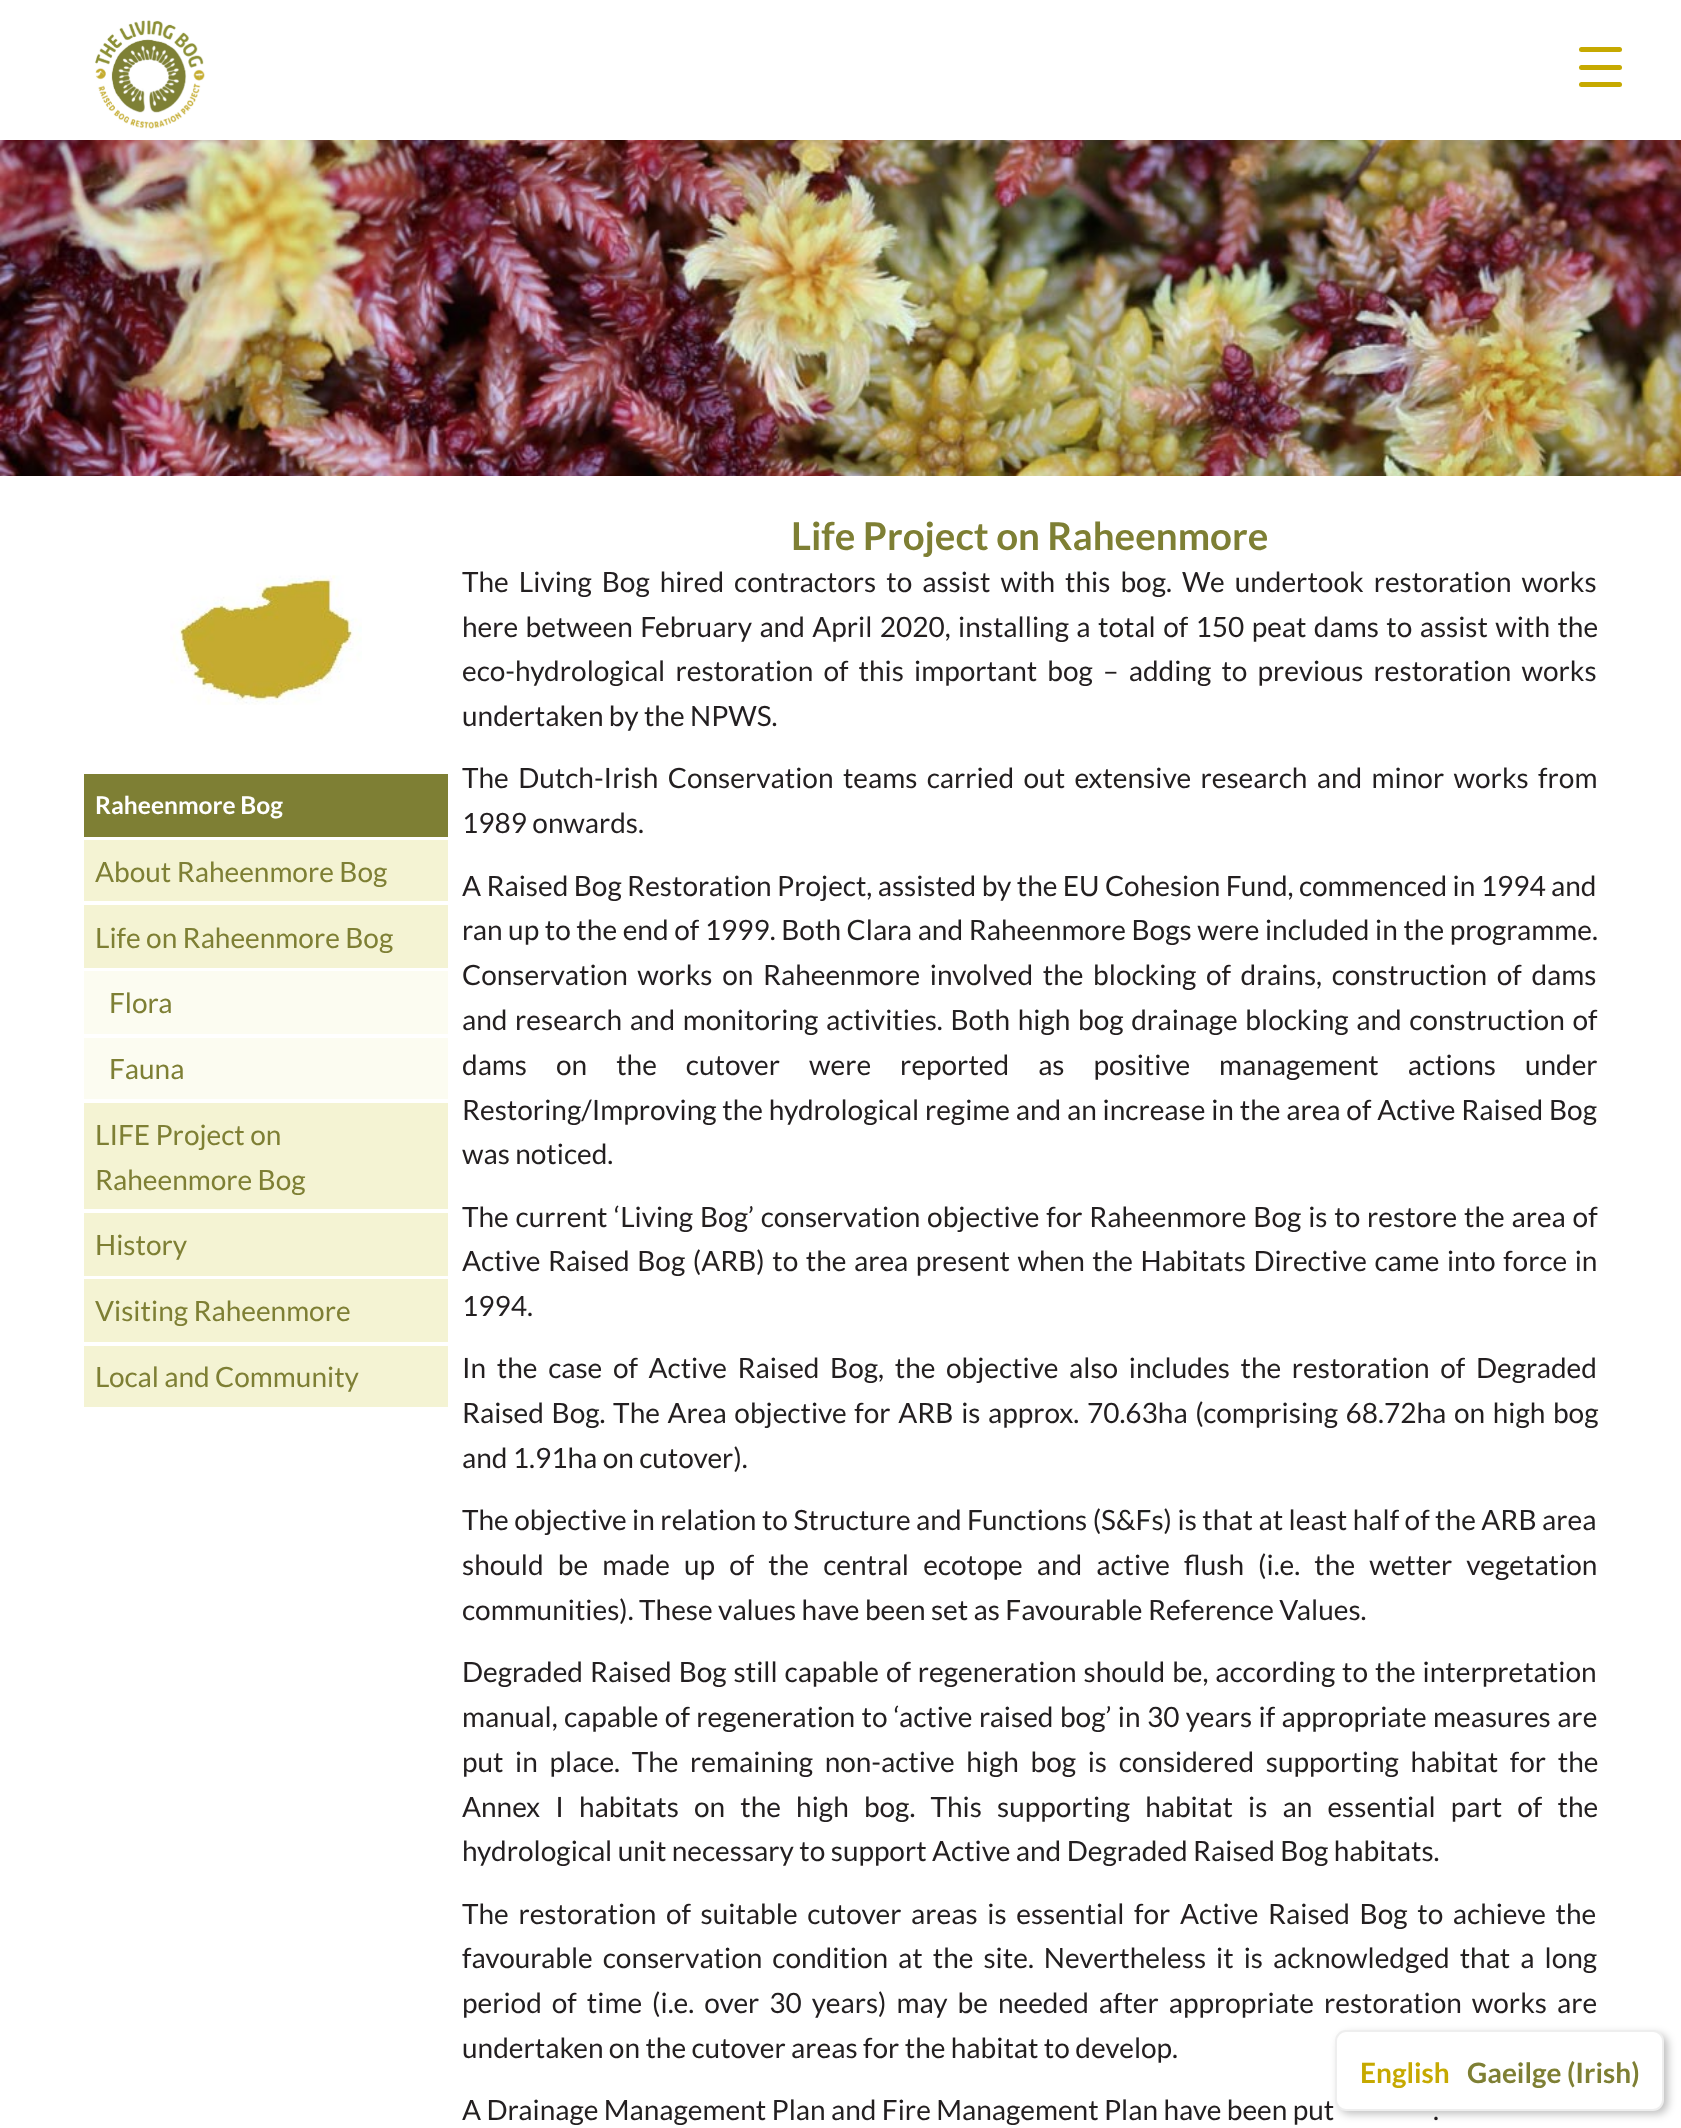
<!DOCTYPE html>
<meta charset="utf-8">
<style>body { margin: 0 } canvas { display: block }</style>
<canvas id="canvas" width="1681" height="2128"></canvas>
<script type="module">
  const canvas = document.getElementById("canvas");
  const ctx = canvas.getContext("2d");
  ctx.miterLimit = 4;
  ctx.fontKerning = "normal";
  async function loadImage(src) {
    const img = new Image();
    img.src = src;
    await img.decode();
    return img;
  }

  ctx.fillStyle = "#ffffff";
  ctx.fillRect(0, 0, 1681, 2128);
  ctx.drawImage(await loadImage("img1.png"), 95, 20, 110, 109);
  ctx.fillStyle = "#c6a900";
  ctx.beginPath();
  ctx.roundRect(1579, 65, 43, 5, 2.5);
  ctx.fill();
  ctx.beginPath();
  ctx.roundRect(1579, 47, 43, 5, 2.5);
  ctx.fill();
  ctx.beginPath();
  ctx.roundRect(1579, 82, 43, 5, 2.5);
  ctx.fill();
  ctx.drawImage(await loadImage("img2.png"), 0, 140, 1681, 336);
  ctx.drawImage(await loadImage("img3.png"), 170, 575, 192, 130);
  ctx.fillStyle = "#7e7f34";
  ctx.fillRect(84, 774, 364, 63);
  ctx.font = "bold 24.5px Lato";
  ctx.fillStyle = "#ffffff";
  ctx.fillText("Raheenmore Bog", 95, 814);
  ctx.fillStyle = "#f4f3d3";
  ctx.fillRect(84, 840, 364, 61);
  ctx.font = "28px Lato";
  ctx.fillStyle = "#7e7f34";
  ctx.fillText("About Raheenmore Bog", 95, 882);
  ctx.fillStyle = "#f4f3d3";
  ctx.fillRect(84, 905, 364, 63);
  ctx.fillStyle = "#7e7f34";
  ctx.fillText("Life on Raheenmore Bog", 95, 948);
  ctx.fillStyle = "#fcfcf1";
  ctx.fillRect(84, 971, 364, 63);
  ctx.fillStyle = "#7e7f34";
  ctx.fillText("Flora", 109, 1013);
  ctx.fillStyle = "#fcfcf1";
  ctx.fillRect(84, 1038, 364, 61);
  ctx.fillStyle = "#7e7f34";
  ctx.fillText("Fauna", 109, 1079);
  ctx.fillStyle = "#f4f3d3";
  ctx.fillRect(84, 1103, 364, 106);
  ctx.fillStyle = "#7e7f34";
  ctx.fillText("LIFE Project on", 95, 1145);
  ctx.fillText("Raheenmore Bog", 95, 1190);
  ctx.fillStyle = "#f4f3d3";
  ctx.fillRect(84, 1213, 364, 63);
  ctx.fillStyle = "#7e7f34";
  ctx.fillText("History", 95, 1255);
  ctx.fillStyle = "#f4f3d3";
  ctx.fillRect(84, 1279, 364, 63);
  ctx.fillStyle = "#7e7f34";
  ctx.fillText("Visiting Raheenmore", 95, 1321);
  ctx.fillStyle = "#f4f3d3";
  ctx.fillRect(84, 1346, 364, 61);
  ctx.fillStyle = "#7e7f34";
  ctx.fillText("Local and Community", 95, 1387);
  ctx.font = "bold 38.5px Lato";
  ctx.fillText("Life Project on Raheenmore", 791, 550);
  ctx.wordSpacing = "4.6px";
  ctx.font = "28px Lato";
  ctx.fillStyle = "#231f20";
  ctx.fillText("The Living Bog hired contractors to assist with this bog. We undertook restoration works", 462, 592);
  ctx.wordSpacing = "2px";
  ctx.fillText("here between February and April 2020, installing a total of 150 peat dams to assist with the", 462, 637);
  ctx.wordSpacing = "4.75px";
  ctx.fillText("eco-hydrological restoration of this important bog – adding to previous restoration works", 462, 681);
  ctx.wordSpacing = "0px";
  ctx.fillText("undertaken by the NPWS.", 462, 726);
  ctx.wordSpacing = "4px";
  ctx.fillText("The Dutch-Irish Conservation teams carried out extensive research and minor works from", 462, 788);
  ctx.wordSpacing = "0px";
  ctx.fillText("1989 onwards.", 462, 833);
  ctx.fillText("A Raised Bog Restoration Project, assisted by the EU Cohesion Fund, commenced in 1994 and", 462, 896);
  ctx.wordSpacing = "0.2px";
  ctx.fillText("ran up to the end of 1999. Both Clara and Raheenmore Bogs were included in the programme.", 462, 940);
  ctx.wordSpacing = "4.25px";
  ctx.fillText("Conservation works on Raheenmore involved the blocking of drains, construction of dams", 462, 985);
  ctx.wordSpacing = "2.25px";
  ctx.fillText("and research and monitoring activities. Both high bog drainage blocking and construction of", 462, 1030);
  ctx.wordSpacing = "23.6px";
  ctx.fillText("dams on the cutover were reported as positive management actions under", 462, 1075);
  ctx.wordSpacing = "0.4px";
  ctx.fillText("Restoring/Improving the hydrological regime and an increase in the area of Active Raised Bog", 462, 1120);
  ctx.wordSpacing = "0px";
  ctx.fillText("was noticed.", 462, 1164);
  ctx.wordSpacing = "1.4px";
  ctx.fillText("The current ‘Living Bog’ conservation objective for Raheenmore Bog is to restore the area of", 462, 1227);
  ctx.wordSpacing = "2.1px";
  ctx.fillText("Active Raised Bog (ARB) to the area present when the Habitats Directive came into force in", 462, 1271);
  ctx.wordSpacing = "0px";
  ctx.fillText("1994.", 462, 1316);
  ctx.wordSpacing = "5.25px";
  ctx.fillText("In the case of Active Raised Bog, the objective also includes the restoration of Degraded", 462, 1378);
  ctx.wordSpacing = "2.25px";
  ctx.fillText("Raised Bog. The Area objective for ARB is approx. 70.63ha (comprising 68.72ha on high bog", 462, 1423);
  ctx.wordSpacing = "0px";
  ctx.fillText("and 1.91ha on cutover).", 462, 1468);
  ctx.wordSpacing = "0.1px";
  ctx.fillText("The objective in relation to Structure and Functions (S&Fs) is that at least half of the ARB area", 462, 1530);
  ctx.wordSpacing = "8.75px";
  ctx.fillText("should be made up of the central ecotope and active flush (i.e. the wetter vegetation", 462, 1575);
  ctx.wordSpacing = "0px";
  ctx.fillText("communities). These values have been set as Favourable Reference Values.", 462, 1620);
  ctx.wordSpacing = "1.5px";
  ctx.fillText("Degraded Raised Bog still capable of regeneration should be, according to the interpretation", 462, 1682);
  ctx.wordSpacing = "1px";
  ctx.fillText("manual, capable of regeneration to ‘active raised bog’ in 30 years if appropriate measures are", 462, 1727);
  ctx.wordSpacing = "6.25px";
  ctx.fillText("put in place. The remaining non-active high bog is considered supporting habitat for the", 462, 1772);
  ctx.wordSpacing = "9.75px";
  ctx.fillText("Annex I habitats on the high bog. This supporting habitat is an essential part of the", 462, 1817);
  ctx.wordSpacing = "0px";
  ctx.fillText("hydrological unit necessary to support Active and Degraded Raised Bog habitats.", 462, 1861);
  ctx.wordSpacing = "4.25px";
  ctx.fillText("The restoration of suitable cutover areas is essential for Active Raised Bog to achieve the", 462, 1924);
  ctx.wordSpacing = "4.6px";
  ctx.fillText("favourable conservation condition at the site. Nevertheless it is acknowledged that a long", 462, 1968);
  ctx.fillText("period of time (i.e. over 30 years) may be needed after appropriate restoration works are", 462, 2013);
  ctx.wordSpacing = "0px";
  ctx.fillText("undertaken on the cutover areas for the habitat to develop.", 462, 2058);
  ctx.fillText("A Drainage Management Plan and Fire Management Plan have been put", 462, 2120);
  ctx.fillText(".", 1433, 2120);
  ctx.fillStyle = "rgba(0, 0, 0, 0.25)";
  ctx.filter = "blur(4.5px)";
  ctx.beginPath();
  ctx.roundRect(1339, 2034, 329, 80, 11);
  ctx.fill();
  ctx.filter = "none";
  ctx.fillStyle = "#ffffff";
  ctx.beginPath();
  ctx.roundRect(1336, 2031, 327, 79, 10);
  ctx.fill();
  ctx.strokeStyle = "#eeeeee";
  ctx.lineWidth = 2;
  ctx.stroke();
  ctx.font = "bold 28px Lato";
  ctx.fillStyle = "#c6a900";
  ctx.fillText("English", 1360, 2083);
  ctx.fillStyle = "#7e7f34";
  ctx.fillText("Gaeilge (Irish)", 1467, 2083);
</script>
